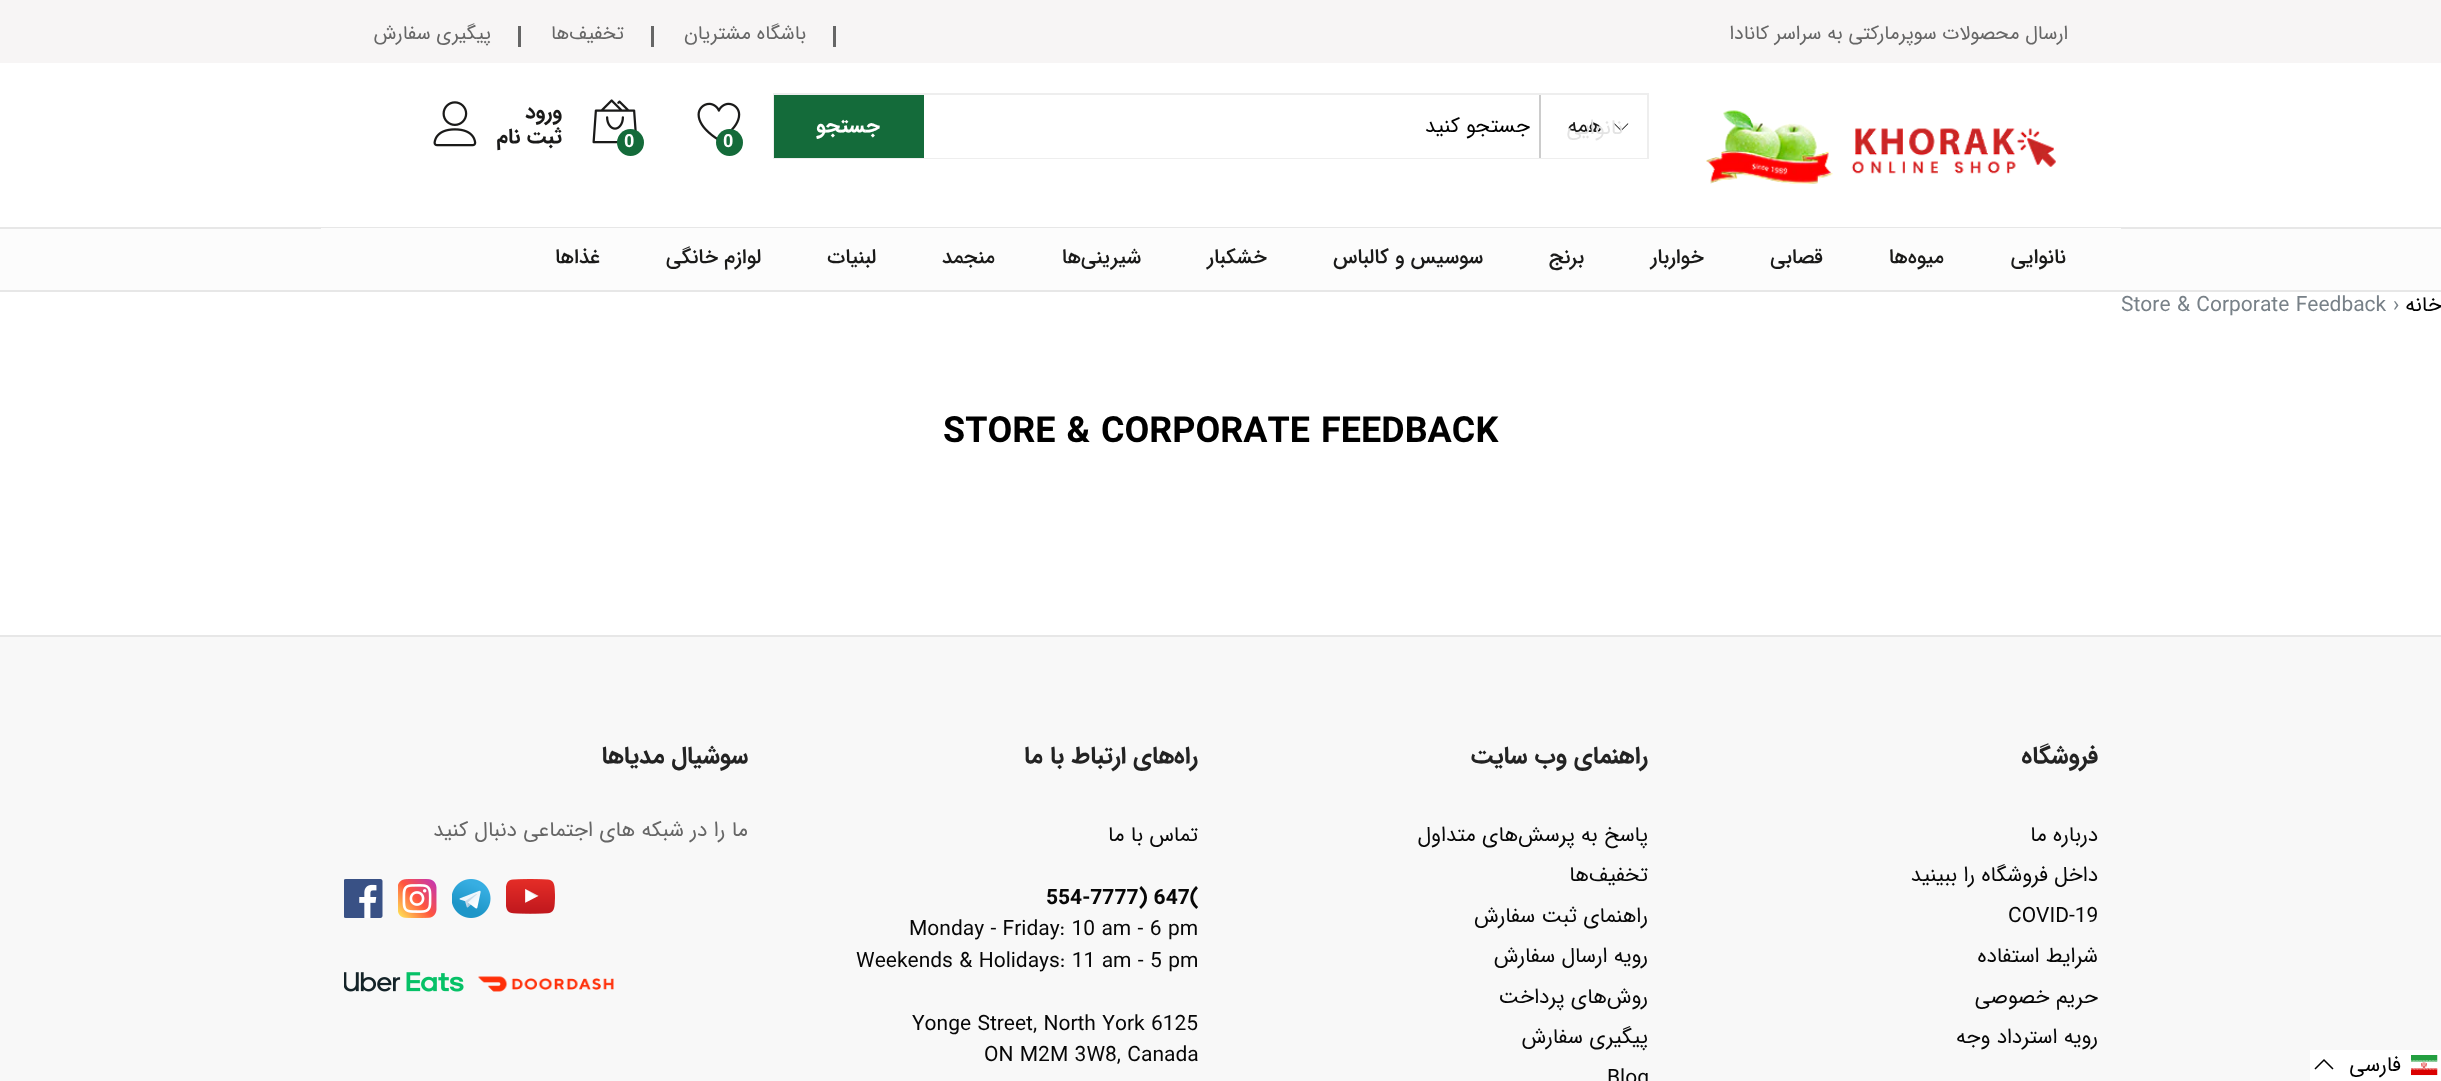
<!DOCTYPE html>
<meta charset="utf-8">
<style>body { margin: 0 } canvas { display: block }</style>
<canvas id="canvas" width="2441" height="1081"></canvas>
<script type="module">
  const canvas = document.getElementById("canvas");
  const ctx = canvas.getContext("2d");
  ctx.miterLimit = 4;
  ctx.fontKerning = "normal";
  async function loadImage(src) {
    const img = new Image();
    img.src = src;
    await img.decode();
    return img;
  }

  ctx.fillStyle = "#ffffff";
  ctx.fillRect(0, 0, 2441, 1081);
  ctx.fillStyle = "#f7f5f5";
  ctx.fillRect(0, 0, 2441, 63);
  ctx.direction = "rtl";
  ctx.font = "19.5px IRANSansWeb";
  ctx.fillStyle = "#666666";
  ctx.fillText("ارسال محصولات سوپرمارکتی به سراسر کانادا", 2068, 39);
  ctx.fillRect(833, 26, 3, 21);
  ctx.fillText("باشگاه مشتریان", 806, 39);
  ctx.fillRect(651, 26, 3, 21);
  ctx.fillText("تخفیف‌ها", 624, 39);
  ctx.fillRect(518, 26, 3, 21);
  ctx.fillText("پیگیری سفارش", 491, 39);
  ctx.drawImage(await loadImage("img1.png"), 1706, 110, 350, 74);
  ctx.strokeStyle = "#eeeeee";
  ctx.lineWidth = 2;
  ctx.strokeRect(774, 94, 874, 64);
  ctx.drawImage(await loadImage("img2.png"), 1614, 123, 15, 8);
  ctx.font = "21px IRANSansWeb";
  ctx.fillStyle = "#1a1a19";
  ctx.fillText("همه", 1602, 132);
  ctx.fillStyle = "#e3e3e3";
  ctx.fillText("نانوایی", 1623, 134);
  ctx.fillStyle = "#ffffff";
  ctx.fillRect(1541, 157, 106, 1);
  ctx.fillStyle = "#cccccc";
  ctx.fillRect(1539, 95, 2, 63);
  ctx.fillStyle = "#ffffff";
  ctx.fillRect(924, 157, 615, 1);
  ctx.fillStyle = "#000000";
  ctx.fillText("جستجو کنید", 1530, 132);
  ctx.fillStyle = "#146b3a";
  ctx.fillRect(774, 95, 150, 63);
  ctx.font = "bold 21px IRANSansWeb";
  ctx.fillStyle = "#ffffff";
  ctx.fillText("جستجو", 880, 132);
  ctx.drawImage(await loadImage("img3.png"), 697, 102, 44, 38);
  ctx.fillStyle = "#146b3a";
  ctx.beginPath();
  ctx.arc(729.5, 142.5, 13.5, 0, Math.PI * 2);
  ctx.fill();
  ctx.direction = "ltr";
  ctx.font = "bold 18px IRANSansWeb";
  ctx.fillStyle = "#ffffff";
  ctx.fillText("0", 723, 147);
  ctx.drawImage(await loadImage("img4.png"), 592, 99, 45, 45);
  ctx.fillStyle = "#146b3a";
  ctx.beginPath();
  ctx.arc(630.5, 142.5, 13.5, 0, Math.PI * 2);
  ctx.fill();
  ctx.fillStyle = "#ffffff";
  ctx.fillText("0", 624, 147);
  ctx.direction = "rtl";
  ctx.font = "bold 21px IRANSansWeb";
  ctx.fillStyle = "#1a1a19";
  ctx.fillText("ورود", 562, 118);
  ctx.drawImage(await loadImage("img5.png"), 433, 101, 44, 46);
  ctx.fillText("ثبت نام", 562, 143);
  ctx.fillStyle = "#fcfcfc";
  ctx.fillRect(0, 229, 2441, 61);
  ctx.fillStyle = "#e7e7e7";
  ctx.fillRect(0, 227, 2441, 2);
  ctx.fillRect(0, 290, 2441, 2);
  ctx.fillStyle = "#fcfcfc";
  ctx.fillRect(321, 228, 1800, 1);
  ctx.font = "500 20.5px IRANSansWeb";
  ctx.fillStyle = "#1a1a19";
  ctx.fillText("نانوایی", 2066, 263);
  ctx.fillText("میوه‌ها", 1944, 263);
  ctx.fillText("قصابی", 1823, 263);
  ctx.fillText("خواربار", 1704, 263);
  ctx.fillText("برنج", 1584, 263);
  ctx.fillText("سوسیس و کالباس", 1483, 263);
  ctx.fillText("خشکبار", 1267, 263);
  ctx.fillText("شیرینی‌ها", 1141, 263);
  ctx.fillText("منجمد", 995, 263);
  ctx.fillText("لبنیات", 876, 263);
  ctx.fillText("لوازم خانگی", 761, 263);
  ctx.fillText("غذاها", 600, 263);
  ctx.font = "21px IRANSansWeb";
  ctx.fillStyle = "#000000";
  ctx.fillText("خانه", 2442, 311);
  ctx.direction = "ltr";
  ctx.fillStyle = "#788188";
  ctx.fillText("›", 2393, 311);
  ctx.fillText("Store & Corporate Feedback", 2121, 311);
  ctx.font = "bold 36px IRANSansWeb";
  ctx.fillStyle = "#000000";
  ctx.fillText("STORE & CORPORATE FEEDBACK", 943, 442);
  ctx.fillStyle = "#f8f8f8";
  ctx.fillRect(0, 637, 2441, 444);
  ctx.fillStyle = "#e7e7e7";
  ctx.fillRect(0, 635, 2441, 2);
  ctx.direction = "rtl";
  ctx.font = "bold 24px IRANSansWeb";
  ctx.fillStyle = "#232323";
  ctx.fillText("فروشگاه", 2098, 763);
  ctx.font = "21px IRANSansWeb";
  ctx.fillStyle = "#070707";
  ctx.fillText("درباره ما", 2098, 841);
  ctx.fillText("داخل فروشگاه را ببینید", 2098, 881);
  ctx.direction = "ltr";
  ctx.fillText("COVID-19", 2008, 922);
  ctx.direction = "rtl";
  ctx.fillText("شرایط استفاده", 2098, 962);
  ctx.fillText("حریم خصوصی", 2098, 1003);
  ctx.fillText("رویه استرداد وجه", 2098, 1043);
  ctx.font = "bold 24px IRANSansWeb";
  ctx.fillStyle = "#232323";
  ctx.fillText("راهنمای وب سایت", 1648, 763);
  ctx.font = "21px IRANSansWeb";
  ctx.fillStyle = "#070707";
  ctx.fillText("پاسخ به پرسش‌های متداول", 1648, 841);
  ctx.fillText("تخفیف‌ها", 1648, 881);
  ctx.fillText("راهنمای ثبت سفارش", 1648, 922);
  ctx.fillText("رویه ارسال سفارش", 1648, 962);
  ctx.fillText("روش‌های پرداخت", 1648, 1003);
  ctx.fillText("پیگیری سفارش", 1648, 1043);
  ctx.direction = "ltr";
  ctx.fillText("Blog", 1607, 1084);
  ctx.direction = "rtl";
  ctx.font = "bold 24px IRANSansWeb";
  ctx.fillStyle = "#232323";
  ctx.fillText("راه‌های ارتباط با ما", 1198, 763);
  ctx.font = "21px IRANSansWeb";
  ctx.fillStyle = "#070707";
  ctx.fillText("تماس با ما", 1198, 841);
  ctx.direction = "ltr";
  ctx.font = "bold 21px IRANSansWeb";
  ctx.fillText("554-7777) 647(", 1046, 904);
  ctx.font = "21px IRANSansWeb";
  ctx.fillText("Monday - Friday: 10 am - 6 pm", 909, 935);
  ctx.fillText("Weekends & Holidays: 11 am - 5 pm", 856, 967);
  ctx.fillText("Yonge Street, North York 6125", 912, 1030);
  ctx.fillText("ON M2M 3W8, Canada", 984, 1061);
  ctx.direction = "rtl";
  ctx.font = "bold 24px IRANSansWeb";
  ctx.fillStyle = "#232323";
  ctx.fillText("سوشیال مدیاها", 748, 763);
  ctx.font = "21px IRANSansWeb";
  ctx.fillStyle = "#666666";
  ctx.fillText("ما را در شبکه های اجتماعی دنبال کنید", 748, 836);
  ctx.drawImage(await loadImage("img6.png"), 506, 879, 49, 35);
  ctx.drawImage(await loadImage("img7.png"), 452, 879, 39, 39);
  ctx.drawImage(await loadImage("img8.png"), 398, 879, 39, 39);
  ctx.drawImage(await loadImage("img9.png"), 344, 879, 39, 39);
  ctx.drawImage(await loadImage("img10.png"), 478, 976, 136, 16);
  ctx.drawImage(await loadImage("img11.png"), 344, 972, 120, 20);
  ctx.fillStyle = "#ffffff";
  ctx.fillRect(2310, 1050, 131, 31);
  ctx.drawImage(await loadImage("img12.png"), 2411, 1055, 27, 21);
  ctx.fillStyle = "#000000";
  ctx.fillText("فارسی", 2401, 1071);
  ctx.beginPath();
  ctx.moveTo(2333, 1069);
  ctx.lineTo(2324, 1060);
  ctx.lineTo(2315, 1069);
  ctx.strokeStyle = "#000000";
  ctx.lineWidth = 1.5;
  ctx.stroke();
</script>
